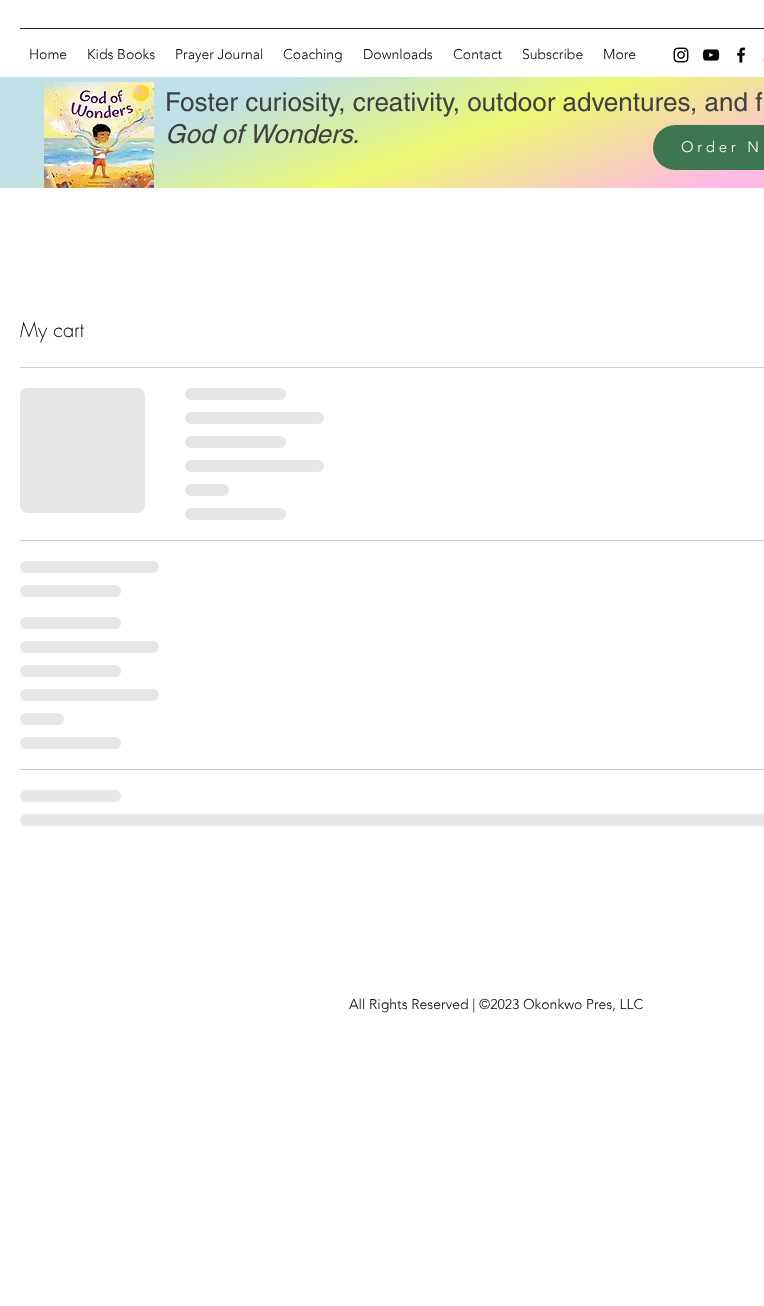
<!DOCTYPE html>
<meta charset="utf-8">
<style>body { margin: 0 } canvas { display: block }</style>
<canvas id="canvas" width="764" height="1306"></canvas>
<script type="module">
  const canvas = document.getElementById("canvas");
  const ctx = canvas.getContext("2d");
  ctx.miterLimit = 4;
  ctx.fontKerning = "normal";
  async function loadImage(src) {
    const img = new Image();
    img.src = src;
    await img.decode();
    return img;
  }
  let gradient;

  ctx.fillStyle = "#ffffff";
  ctx.fillRect(0, 0, 764, 1306);
  ctx.fillStyle = "#262626";
  ctx.fillRect(20, 28, 744, 1);
  ctx.font = "300 14px 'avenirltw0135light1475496'";
  ctx.fillStyle = "#000000";
  ctx.fillText("Home", 29, 59);
  ctx.fillText("Kids Books", 87, 59);
  ctx.fillText("Prayer Journal", 175, 59);
  ctx.fillText("Coaching", 283, 59);
  ctx.fillText("Downloads", 363, 59);
  ctx.fillText("Contact", 453, 59);
  ctx.fillText("Subscribe", 522, 59);
  ctx.fillText("More", 603, 59);
  ctx.drawImage(await loadImage("img1.png"), 673, 47, 16, 16);
  ctx.drawImage(await loadImage("img2.png"), 702, 49, 18, 12);
  ctx.drawImage(await loadImage("img3.png"), 737, 47, 9, 16);
  ctx.drawImage(await loadImage("img4.png"), 763, 59, 1, 2);
  gradient = ctx.createLinearGradient(565, 339, 415, -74);
  gradient.addColorStop(0.22, "#ffb9e5");
  gradient.addColorStop(0.51, "#ecf872");
  gradient.addColorStop(0.77, "#bee0e6");
  ctx.fillStyle = gradient;
  ctx.fillRect(0, 77, 764, 111);
  ctx.drawImage(await loadImage("img5.png"), 44, 82, 110, 106);
  ctx.font = "26px helvetica";
  ctx.fillStyle = "#404040";
  ctx.fillText("Foster curiosity, creativity, outdoor adventures, and f", 165, 111);
  ctx.font = "italic 26px helvetica";
  ctx.fillText("God of Wonders.", 165, 143);
  ctx.fillStyle = "#3f7652";
  ctx.beginPath();
  ctx.roundRect(653, 125, 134, 45, 22.5);
  ctx.fill();
  ctx.letterSpacing = "3.75px";
  ctx.font = "300 15px 'avenirltw0135light1475496'";
  ctx.fillStyle = "#ffffff";
  ctx.fillText("Order N", 681, 152);
  ctx.fillStyle = "#cccccc";
  ctx.fillRect(20, 367, 744, 1);
  ctx.letterSpacing = "0px";
  ctx.font = "300 20px futura";
  ctx.fillStyle = "#000000";
  ctx.fillText("My cart", 20, 337);
  gradient = ctx.createLinearGradient(20, 451, 520, 451);
  gradient.addColorStop(0.25, "#e6e6e6");
  gradient.addColorStop(0.37, "#cccccc");
  gradient.addColorStop(0.63, "#e6e6e6");
  ctx.fillStyle = gradient;
  ctx.beginPath();
  ctx.roundRect(20, 388, 125, 125, 8);
  ctx.fill();
  gradient = ctx.createLinearGradient(185, 394, 589, 394);
  gradient.addColorStop(0.25, "#e6e6e6");
  gradient.addColorStop(0.37, "#cccccc");
  gradient.addColorStop(0.63, "#e6e6e6");
  ctx.fillStyle = gradient;
  ctx.beginPath();
  ctx.roundRect(185, 388, 101, 12, 6);
  ctx.fill();
  gradient = ctx.createLinearGradient(185, 418, 741, 418);
  gradient.addColorStop(0.25, "#e6e6e6");
  gradient.addColorStop(0.37, "#cccccc");
  gradient.addColorStop(0.63, "#e6e6e6");
  ctx.fillStyle = gradient;
  ctx.beginPath();
  ctx.roundRect(185, 412, 139, 12, 6);
  ctx.fill();
  gradient = ctx.createLinearGradient(185, 442, 589, 442);
  gradient.addColorStop(0.25, "#e6e6e6");
  gradient.addColorStop(0.37, "#cccccc");
  gradient.addColorStop(0.63, "#e6e6e6");
  ctx.fillStyle = gradient;
  ctx.beginPath();
  ctx.roundRect(185, 436, 101, 12, 6);
  ctx.fill();
  gradient = ctx.createLinearGradient(185, 466, 741, 466);
  gradient.addColorStop(0.25, "#e6e6e6");
  gradient.addColorStop(0.37, "#cccccc");
  gradient.addColorStop(0.63, "#e6e6e6");
  ctx.fillStyle = gradient;
  ctx.beginPath();
  ctx.roundRect(185, 460, 139, 12, 6);
  ctx.fill();
  gradient = ctx.createLinearGradient(185, 490, 361, 490);
  gradient.addColorStop(0.25, "#e6e6e6");
  gradient.addColorStop(0.37, "#cccccc");
  gradient.addColorStop(0.63, "#e6e6e6");
  ctx.fillStyle = gradient;
  ctx.beginPath();
  ctx.roundRect(185, 484, 44, 12, 6);
  ctx.fill();
  gradient = ctx.createLinearGradient(185, 514, 589, 514);
  gradient.addColorStop(0.25, "#e6e6e6");
  gradient.addColorStop(0.37, "#cccccc");
  gradient.addColorStop(0.63, "#e6e6e6");
  ctx.fillStyle = gradient;
  ctx.beginPath();
  ctx.roundRect(185, 508, 101, 12, 6);
  ctx.fill();
  ctx.fillStyle = "#cccccc";
  ctx.fillRect(20, 540, 744, 1);
  gradient = ctx.createLinearGradient(20, 567, 576, 567);
  gradient.addColorStop(0.25, "#e6e6e6");
  gradient.addColorStop(0.37, "#cccccc");
  gradient.addColorStop(0.63, "#e6e6e6");
  ctx.fillStyle = gradient;
  ctx.beginPath();
  ctx.roundRect(20, 561, 139, 12, 6);
  ctx.fill();
  gradient = ctx.createLinearGradient(20, 591, 424, 591);
  gradient.addColorStop(0.25, "#e6e6e6");
  gradient.addColorStop(0.37, "#cccccc");
  gradient.addColorStop(0.63, "#e6e6e6");
  ctx.fillStyle = gradient;
  ctx.beginPath();
  ctx.roundRect(20, 585, 101, 12, 6);
  ctx.fill();
  gradient = ctx.createLinearGradient(20, 623, 424, 623);
  gradient.addColorStop(0.25, "#e6e6e6");
  gradient.addColorStop(0.37, "#cccccc");
  gradient.addColorStop(0.63, "#e6e6e6");
  ctx.fillStyle = gradient;
  ctx.beginPath();
  ctx.roundRect(20, 617, 101, 12, 6);
  ctx.fill();
  gradient = ctx.createLinearGradient(20, 647, 576, 647);
  gradient.addColorStop(0.25, "#e6e6e6");
  gradient.addColorStop(0.37, "#cccccc");
  gradient.addColorStop(0.63, "#e6e6e6");
  ctx.fillStyle = gradient;
  ctx.beginPath();
  ctx.roundRect(20, 641, 139, 12, 6);
  ctx.fill();
  gradient = ctx.createLinearGradient(20, 671, 424, 671);
  gradient.addColorStop(0.25, "#e6e6e6");
  gradient.addColorStop(0.37, "#cccccc");
  gradient.addColorStop(0.63, "#e6e6e6");
  ctx.fillStyle = gradient;
  ctx.beginPath();
  ctx.roundRect(20, 665, 101, 12, 6);
  ctx.fill();
  gradient = ctx.createLinearGradient(20, 695, 576, 695);
  gradient.addColorStop(0.25, "#e6e6e6");
  gradient.addColorStop(0.37, "#cccccc");
  gradient.addColorStop(0.63, "#e6e6e6");
  ctx.fillStyle = gradient;
  ctx.beginPath();
  ctx.roundRect(20, 689, 139, 12, 6);
  ctx.fill();
  gradient = ctx.createLinearGradient(20, 719, 196, 719);
  gradient.addColorStop(0.25, "#e6e6e6");
  gradient.addColorStop(0.37, "#cccccc");
  gradient.addColorStop(0.63, "#e6e6e6");
  ctx.fillStyle = gradient;
  ctx.beginPath();
  ctx.roundRect(20, 713, 44, 12, 6);
  ctx.fill();
  gradient = ctx.createLinearGradient(20, 743, 424, 743);
  gradient.addColorStop(0.25, "#e6e6e6");
  gradient.addColorStop(0.37, "#cccccc");
  gradient.addColorStop(0.63, "#e6e6e6");
  ctx.fillStyle = gradient;
  ctx.beginPath();
  ctx.roundRect(20, 737, 101, 12, 6);
  ctx.fill();
  ctx.fillStyle = "#cccccc";
  ctx.fillRect(20, 769, 744, 1);
  gradient = ctx.createLinearGradient(20, 796, 424, 796);
  gradient.addColorStop(0.25, "#e6e6e6");
  gradient.addColorStop(0.37, "#cccccc");
  gradient.addColorStop(0.63, "#e6e6e6");
  ctx.fillStyle = gradient;
  ctx.beginPath();
  ctx.roundRect(20, 790, 101, 12, 6);
  ctx.fill();
  gradient = ctx.createLinearGradient(20, 820, 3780, 820);
  gradient.addColorStop(0.25, "#e6e6e6");
  gradient.addColorStop(0.37, "#cccccc");
  gradient.addColorStop(0.63, "#e6e6e6");
  ctx.fillStyle = gradient;
  ctx.beginPath();
  ctx.roundRect(20, 814, 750, 12, 6);
  ctx.fill();
  ctx.font = "300 14px 'avenirltw0135light1475496'";
  ctx.fillStyle = "#000000";
  ctx.fillText("All Rights Reserved | ©2023 Okonkwo Pres, LLC", 349, 1009);
</script>
